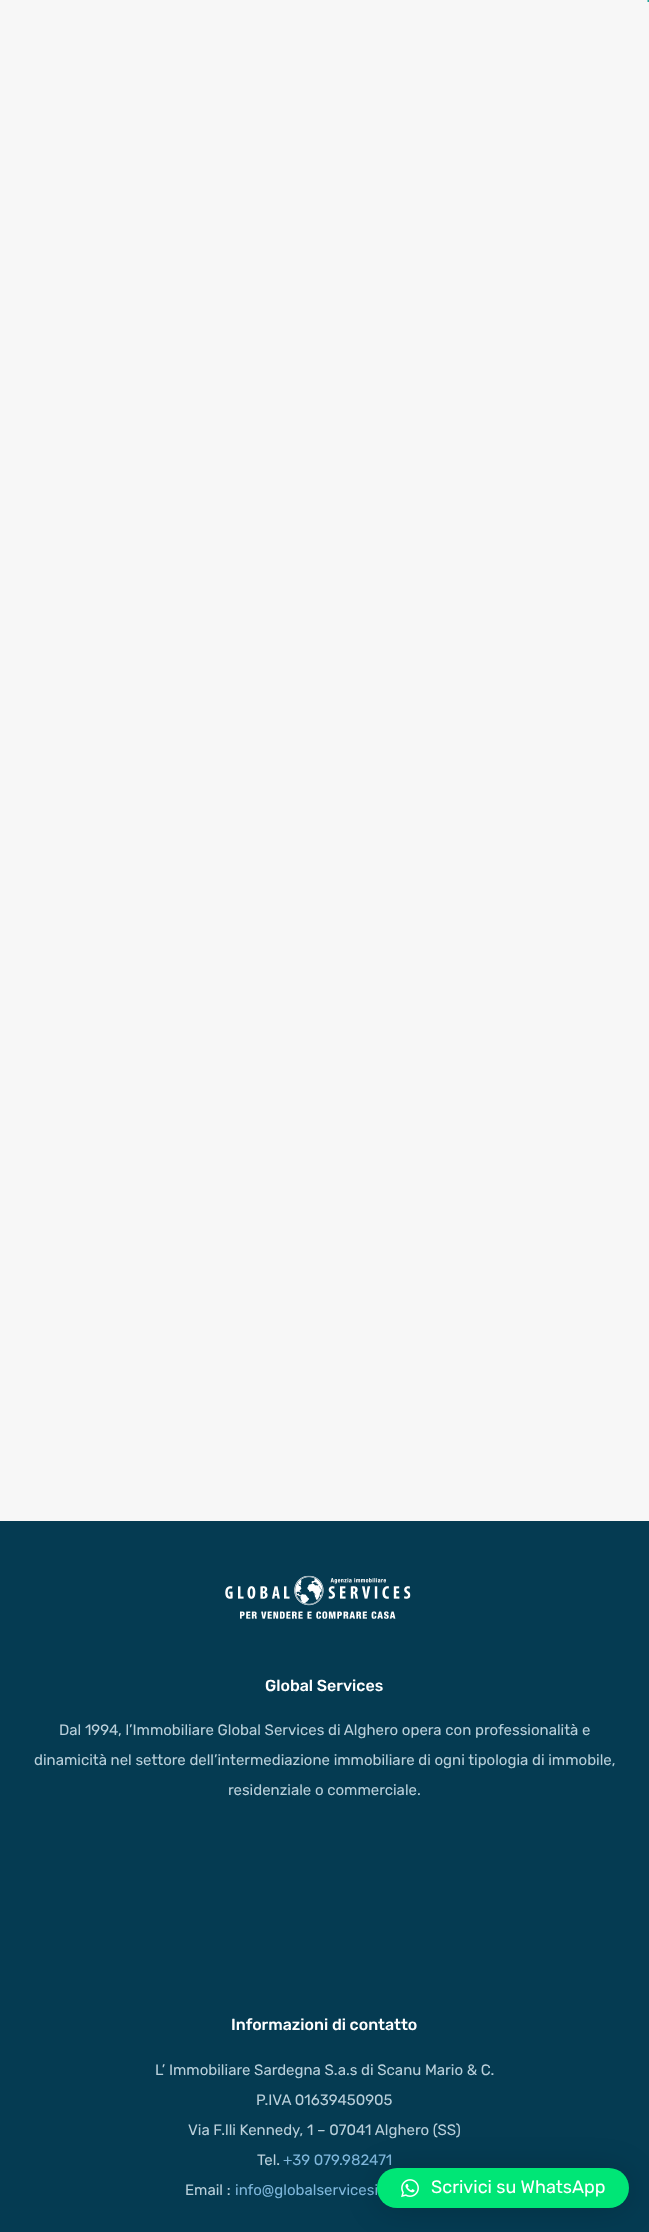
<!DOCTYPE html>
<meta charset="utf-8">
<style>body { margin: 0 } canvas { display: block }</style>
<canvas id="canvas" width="649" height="2232"></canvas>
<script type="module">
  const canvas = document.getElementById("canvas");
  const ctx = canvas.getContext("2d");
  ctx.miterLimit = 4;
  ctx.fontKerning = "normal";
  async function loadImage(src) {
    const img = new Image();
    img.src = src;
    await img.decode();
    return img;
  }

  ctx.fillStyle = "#f7f7f7";
  ctx.fillRect(0, 0, 649, 2232);
  ctx.beginPath();
  ctx.moveTo(647.5, 1);
  ctx.lineTo(649, 1);
  ctx.strokeStyle = "#1ea69a";
  ctx.lineWidth = 1.9;
  ctx.stroke();
  ctx.fillStyle = "#053b52";
  ctx.fillRect(0, 1521, 649, 711);
  ctx.drawImage(await loadImage("img1.png"), 225, 1575, 186, 44);
  ctx.font = "500 16px Rubik";
  ctx.fillStyle = "#ffffff";
  ctx.fillText("Global Services", 265, 1691);
  ctx.font = "15px Rubik";
  ctx.fillStyle = "#bad0db";
  ctx.fillText("Dal 1994, l’Immobiliare Global Services di Alghero opera con professionalità e", 59, 1735);
  ctx.fillText("dinamicità nel settore dell’intermediazione immobiliare di ogni tipologia di immobile,", 34, 1765);
  ctx.fillText("residenziale o commerciale.", 228, 1795);
  ctx.font = "500 16px Rubik";
  ctx.fillStyle = "#ffffff";
  ctx.fillText("Informazioni di contatto", 231, 2030);
  ctx.font = "15px Rubik";
  ctx.fillStyle = "#bad0db";
  ctx.fillText("L’ Immobiliare Sardegna S.a.s di Scanu Mario & C.", 155, 2075);
  ctx.fillText("P.IVA 01639450905", 256, 2105);
  ctx.fillText("Via F.lli Kennedy, 1 – 07041 Alghero (SS)", 188, 2135);
  ctx.fillText("Tel.", 257, 2165);
  ctx.fillStyle = "#7fb7db";
  ctx.fillText("+39 079.982471", 283, 2165);
  ctx.fillStyle = "#bad0db";
  ctx.fillText("Email :", 185, 2195);
  ctx.fillStyle = "#7fb7db";
  ctx.fillText("info@globalservicesi", 235, 2195);
  ctx.fillStyle = "rgba(0, 0, 0, 0.16)";
  ctx.filter = "blur(16px)";
  ctx.beginPath();
  ctx.roundRect(377, 2170, 252, 40, 20);
  ctx.fill();
  ctx.filter = "none";
  ctx.fillStyle = "#00e676";
  ctx.beginPath();
  ctx.roundRect(377, 2168, 252, 40, 20);
  ctx.fill();
  ctx.drawImage(await loadImage("img2.png"), 401, 2179, 18, 19);
  ctx.font = "18px Rubik";
  ctx.fillStyle = "#ffffff";
  ctx.fillText("Scrivici su WhatsApp", 431, 2193);
</script>
